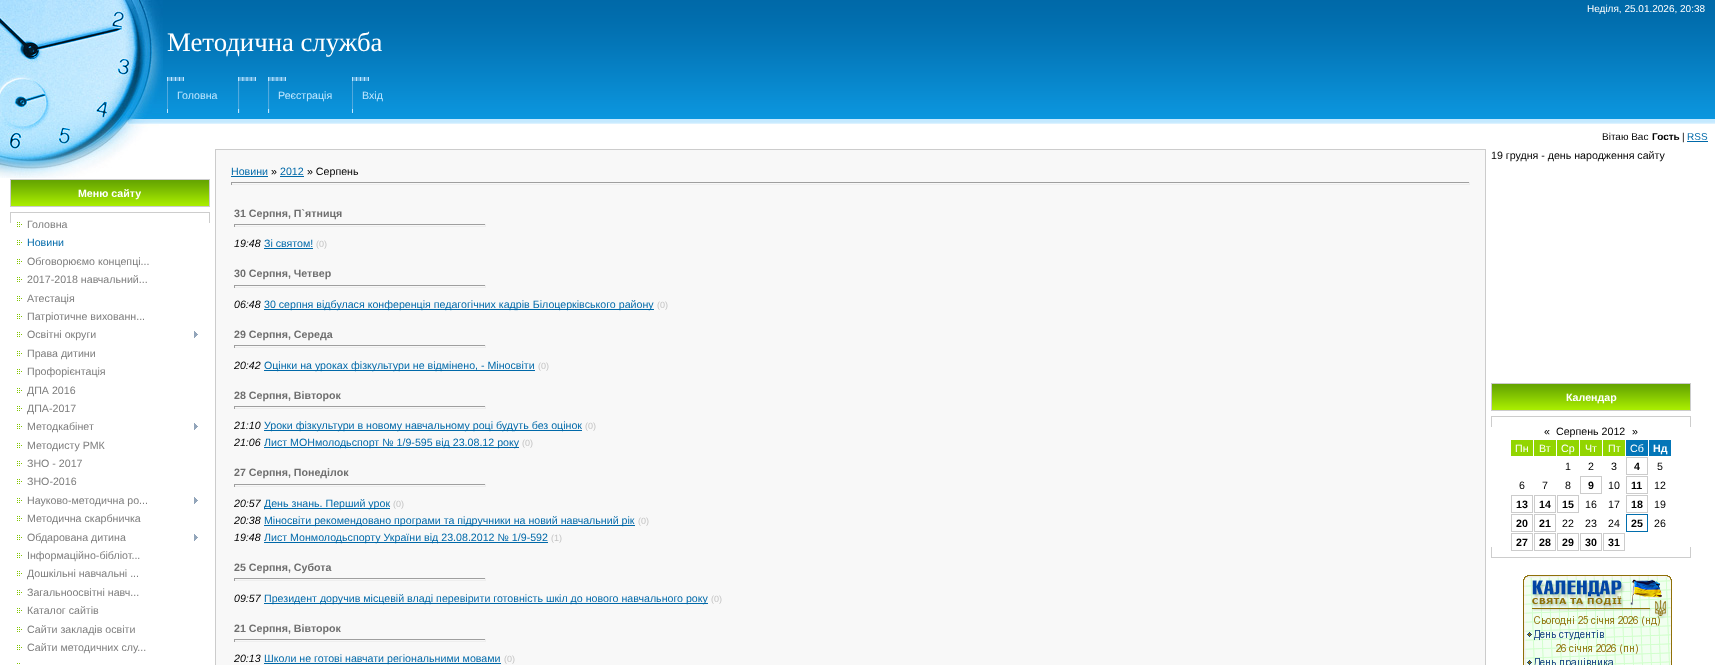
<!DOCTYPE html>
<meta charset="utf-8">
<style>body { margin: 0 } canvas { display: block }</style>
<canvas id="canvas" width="1715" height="665"></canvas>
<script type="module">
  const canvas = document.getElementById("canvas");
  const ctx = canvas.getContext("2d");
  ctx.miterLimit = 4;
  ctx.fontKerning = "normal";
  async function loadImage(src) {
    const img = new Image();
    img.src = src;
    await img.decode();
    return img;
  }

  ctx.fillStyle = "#ffffff";
  ctx.fillRect(0, 0, 1715, 665);
  ctx.drawImage(await loadImage("img1.png"), 0, 124, 159, 54);
  ctx.drawImage(await loadImage("img2.png"), 163, 0, 1552, 124);
  ctx.drawImage(await loadImage("img3.png"), 0, 0, 163, 124);
  ctx.font = "10px Liberation Sans";
  ctx.fillText("Неділя, 25.01.2026, 20:38", 1587, 12);
  ctx.font = "26.75px Liberation Serif";
  ctx.fillText("Методична служба", 167, 51);
  ctx.drawImage(await loadImage("img4.png"), 167, 77, 17, 36);
  ctx.font = "10.65px Liberation Sans";
  ctx.fillStyle = "#c1e7ff";
  ctx.fillText("Головна", 177, 99);
  ctx.drawImage(await loadImage("img5.png"), 238, 77, 18, 36);
  ctx.drawImage(await loadImage("img6.png"), 268, 77, 18, 36);
  ctx.fillText("Реєстрація", 278, 99);
  ctx.drawImage(await loadImage("img4.png"), 352, 77, 17, 36);
  ctx.fillText("Вхід", 362, 99);
  ctx.font = "10px Liberation Sans";
  ctx.fillStyle = "#000000";
  ctx.fillText("Вітаю Вас", 1602, 140);
  ctx.font = "bold 10px Liberation Sans";
  ctx.fillText("Гость", 1652, 140);
  ctx.font = "10px Liberation Sans";
  ctx.fillText("|", 1682, 140);
  ctx.fillStyle = "#0069a9";
  ctx.fillText("RSS", 1687, 140);
  ctx.fillRect(1687, 141, 21, 1);
  ctx.drawImage(await loadImage("img7.png"), 11, 180, 198, 26);
  ctx.strokeStyle = "#cccccc";
  ctx.strokeRect(10.5, 179.5, 199, 27);
  ctx.font = "bold 10.65px Liberation Sans";
  ctx.fillStyle = "#ffffff";
  ctx.fillText("Меню сайту", 78, 197);
  ctx.fillStyle = "#cdcdcd";
  ctx.fillRect(10, 212, 1, 11);
  ctx.fillRect(209, 212, 1, 11);
  ctx.fillRect(11, 212, 198, 1);
  ctx.drawImage(await loadImage("img8.png"), 17, 222, 5, 5);
  ctx.font = "10.65px Liberation Sans";
  ctx.fillStyle = "#7d7d7d";
  ctx.fillText("Головна", 27, 228);
  ctx.drawImage(await loadImage("img8.png"), 17, 240, 5, 5);
  ctx.fillStyle = "#0069a9";
  ctx.fillText("Новини", 27, 246);
  ctx.drawImage(await loadImage("img8.png"), 17, 259, 5, 5);
  ctx.fillStyle = "#7d7d7d";
  ctx.fillText("Обговорюємо концепці...", 27, 265);
  ctx.drawImage(await loadImage("img8.png"), 17, 277, 5, 5);
  ctx.fillText("2017-2018 навчальний...", 27, 283);
  ctx.drawImage(await loadImage("img8.png"), 17, 296, 5, 5);
  ctx.fillText("Атестація", 27, 302);
  ctx.drawImage(await loadImage("img8.png"), 17, 314, 5, 5);
  ctx.fillText("Патріотичне вихованн...", 27, 320);
  ctx.drawImage(await loadImage("img8.png"), 17, 332, 5, 5);
  ctx.fillText("Освітні округи", 27, 338);
  ctx.drawImage(await loadImage("img9.png"), 194, 331, 4, 7);
  ctx.drawImage(await loadImage("img8.png"), 17, 351, 5, 5);
  ctx.fillText("Права дитини", 27, 357);
  ctx.drawImage(await loadImage("img8.png"), 17, 369, 5, 5);
  ctx.fillText("Профорієнтація", 27, 375);
  ctx.drawImage(await loadImage("img8.png"), 17, 388, 5, 5);
  ctx.fillText("ДПА 2016", 27, 394);
  ctx.drawImage(await loadImage("img8.png"), 17, 406, 5, 5);
  ctx.fillText("ДПА-2017", 27, 412);
  ctx.drawImage(await loadImage("img8.png"), 17, 424, 5, 5);
  ctx.fillText("Методкабінет", 27, 430);
  ctx.drawImage(await loadImage("img9.png"), 194, 423, 4, 7);
  ctx.drawImage(await loadImage("img8.png"), 17, 443, 5, 5);
  ctx.fillText("Методисту РМК", 27, 449);
  ctx.drawImage(await loadImage("img8.png"), 17, 461, 5, 5);
  ctx.fillText("ЗНО - 2017", 27, 467);
  ctx.drawImage(await loadImage("img8.png"), 17, 479, 5, 5);
  ctx.fillText("ЗНО-2016", 27, 485);
  ctx.drawImage(await loadImage("img8.png"), 17, 498, 5, 5);
  ctx.fillText("Науково-методична ро...", 27, 504);
  ctx.drawImage(await loadImage("img9.png"), 194, 497, 4, 7);
  ctx.drawImage(await loadImage("img8.png"), 17, 516, 5, 5);
  ctx.fillText("Методична скарбничка", 27, 522);
  ctx.drawImage(await loadImage("img8.png"), 17, 535, 5, 5);
  ctx.fillText("Обдарована дитина", 27, 541);
  ctx.drawImage(await loadImage("img9.png"), 194, 534, 4, 7);
  ctx.drawImage(await loadImage("img8.png"), 17, 553, 5, 5);
  ctx.fillText("Інформаційно-бібліот...", 27, 559);
  ctx.drawImage(await loadImage("img8.png"), 17, 571, 5, 5);
  ctx.fillText("Дошкільні навчальні ...", 27, 577);
  ctx.drawImage(await loadImage("img8.png"), 17, 590, 5, 5);
  ctx.fillText("Загальноосвітні навч...", 27, 596);
  ctx.drawImage(await loadImage("img8.png"), 17, 608, 5, 5);
  ctx.fillText("Каталог сайтів", 27, 614);
  ctx.drawImage(await loadImage("img8.png"), 17, 627, 5, 5);
  ctx.fillText("Сайти закладів освіти", 27, 633);
  ctx.drawImage(await loadImage("img8.png"), 17, 645, 5, 5);
  ctx.fillText("Сайти методичних слу...", 27, 651);
  ctx.drawImage(await loadImage("img10.png"), 17, 663, 3, 1);
  ctx.strokeRect(215.5, 149.5, 1270, 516);
  ctx.fillStyle = "#f8f8f8";
  ctx.fillRect(216, 150, 1269, 515);
  ctx.fillStyle = "#0069a9";
  ctx.fillText("Новини", 231, 175);
  ctx.fillRect(231, 176, 37, 1);
  ctx.fillStyle = "#000000";
  ctx.fillText("»", 271, 175);
  ctx.fillStyle = "#0069a9";
  ctx.fillText("2012", 280, 175);
  ctx.fillRect(280, 176, 24, 1);
  ctx.fillStyle = "#000000";
  ctx.fillText("» Серпень", 307, 175);
  ctx.fillStyle = "#9f9f9f";
  ctx.fillRect(231, 182, 1239, 1);
  ctx.fillStyle = "#eeeeee";
  ctx.fillRect(1469, 182, 1, 3);
  ctx.fillRect(231, 184, 1239, 1);
  ctx.fillStyle = "#9f9f9f";
  ctx.fillRect(231, 182, 1, 3);
  ctx.font = "bold 10.65px Liberation Sans";
  ctx.fillStyle = "#6e6e6e";
  ctx.fillText("31 Серпня, П`ятниця", 234, 217);
  ctx.fillStyle = "#9f9f9f";
  ctx.fillRect(234, 224, 252, 1);
  ctx.fillStyle = "#eeeeee";
  ctx.fillRect(485, 224, 1, 3);
  ctx.fillRect(234, 226, 252, 1);
  ctx.fillStyle = "#9f9f9f";
  ctx.fillRect(234, 224, 1, 3);
  ctx.font = "italic 10.65px Liberation Sans";
  ctx.fillStyle = "#000000";
  ctx.fillText("19:48", 234, 247);
  ctx.font = "10.65px Liberation Sans";
  ctx.fillStyle = "#0069a9";
  ctx.fillText("Зі святом!", 264, 247);
  ctx.fillRect(264, 248, 49, 1);
  ctx.font = "9px Liberation Sans";
  ctx.fillStyle = "#c3c3c3";
  ctx.fillText("(0)", 316, 247);
  ctx.font = "bold 10.65px Liberation Sans";
  ctx.fillStyle = "#6e6e6e";
  ctx.fillText("30 Серпня, Четвер", 234, 277);
  ctx.fillStyle = "#9f9f9f";
  ctx.fillRect(234, 285, 252, 1);
  ctx.fillStyle = "#eeeeee";
  ctx.fillRect(485, 285, 1, 3);
  ctx.fillRect(234, 287, 252, 1);
  ctx.fillStyle = "#9f9f9f";
  ctx.fillRect(234, 285, 1, 3);
  ctx.font = "italic 10.65px Liberation Sans";
  ctx.fillStyle = "#000000";
  ctx.fillText("06:48", 234, 308);
  ctx.fillStyle = "#0069a9";
  ctx.fillRect(264, 309, 390, 1);
  ctx.font = "10.65px Liberation Sans";
  ctx.fillText("30 серпня відбулася конференція педагогічних кадрів Білоцерківського району", 264, 308);
  ctx.font = "9px Liberation Sans";
  ctx.fillStyle = "#c3c3c3";
  ctx.fillText("(0)", 657, 308);
  ctx.font = "bold 10.65px Liberation Sans";
  ctx.fillStyle = "#6e6e6e";
  ctx.fillText("29 Серпня, Середа", 234, 338);
  ctx.fillStyle = "#9f9f9f";
  ctx.fillRect(234, 345, 252, 1);
  ctx.fillStyle = "#eeeeee";
  ctx.fillRect(485, 345, 1, 3);
  ctx.fillRect(234, 347, 252, 1);
  ctx.fillStyle = "#9f9f9f";
  ctx.fillRect(234, 345, 1, 3);
  ctx.font = "italic 10.65px Liberation Sans";
  ctx.fillStyle = "#000000";
  ctx.fillText("20:42", 234, 369);
  ctx.fillStyle = "#0069a9";
  ctx.fillRect(264, 370, 271, 1);
  ctx.font = "10.65px Liberation Sans";
  ctx.fillText("Оцінки на уроках фізкультури не відмінено, - Міносвіти", 264, 369);
  ctx.font = "9px Liberation Sans";
  ctx.fillStyle = "#c3c3c3";
  ctx.fillText("(0)", 538, 369);
  ctx.font = "bold 10.65px Liberation Sans";
  ctx.fillStyle = "#6e6e6e";
  ctx.fillText("28 Серпня, Вівторок", 234, 399);
  ctx.fillStyle = "#9f9f9f";
  ctx.fillRect(234, 406, 252, 1);
  ctx.fillStyle = "#eeeeee";
  ctx.fillRect(485, 406, 1, 3);
  ctx.fillRect(234, 408, 252, 1);
  ctx.fillStyle = "#9f9f9f";
  ctx.fillRect(234, 406, 1, 3);
  ctx.font = "italic 10.65px Liberation Sans";
  ctx.fillStyle = "#000000";
  ctx.fillText("21:10", 234, 429);
  ctx.fillStyle = "#0069a9";
  ctx.fillRect(264, 430, 318, 1);
  ctx.font = "10.65px Liberation Sans";
  ctx.fillText("Уроки фізкультури в новому навчальному році будуть без оцінок", 264, 429);
  ctx.font = "9px Liberation Sans";
  ctx.fillStyle = "#c3c3c3";
  ctx.fillText("(0)", 585, 429);
  ctx.font = "italic 10.65px Liberation Sans";
  ctx.fillStyle = "#000000";
  ctx.fillText("21:06", 234, 446);
  ctx.fillStyle = "#0069a9";
  ctx.fillRect(264, 447, 255, 1);
  ctx.font = "10.65px Liberation Sans";
  ctx.fillText("Лист МОНмолодьспорт № 1/9-595 від 23.08.12 року", 264, 446);
  ctx.font = "9px Liberation Sans";
  ctx.fillStyle = "#c3c3c3";
  ctx.fillText("(0)", 522, 446);
  ctx.font = "bold 10.65px Liberation Sans";
  ctx.fillStyle = "#6e6e6e";
  ctx.fillText("27 Серпня, Понеділок", 234, 476);
  ctx.fillStyle = "#9f9f9f";
  ctx.fillRect(234, 484, 252, 1);
  ctx.fillStyle = "#eeeeee";
  ctx.fillRect(485, 484, 1, 3);
  ctx.fillRect(234, 486, 252, 1);
  ctx.fillStyle = "#9f9f9f";
  ctx.fillRect(234, 484, 1, 3);
  ctx.font = "italic 10.65px Liberation Sans";
  ctx.fillStyle = "#000000";
  ctx.fillText("20:57", 234, 507);
  ctx.fillStyle = "#0069a9";
  ctx.fillRect(264, 508, 126, 1);
  ctx.font = "10.65px Liberation Sans";
  ctx.fillText("День знань. Перший урок", 264, 507);
  ctx.font = "9px Liberation Sans";
  ctx.fillStyle = "#c3c3c3";
  ctx.fillText("(0)", 393, 507);
  ctx.font = "italic 10.65px Liberation Sans";
  ctx.fillStyle = "#000000";
  ctx.fillText("20:38", 234, 524);
  ctx.fillStyle = "#0069a9";
  ctx.fillRect(264, 525, 371, 1);
  ctx.font = "10.65px Liberation Sans";
  ctx.fillText("Міносвіти рекомендовано програми та підручники на новий навчальний рік", 264, 524);
  ctx.font = "9px Liberation Sans";
  ctx.fillStyle = "#c3c3c3";
  ctx.fillText("(0)", 638, 524);
  ctx.font = "italic 10.65px Liberation Sans";
  ctx.fillStyle = "#000000";
  ctx.fillText("19:48", 234, 541);
  ctx.fillStyle = "#0069a9";
  ctx.fillRect(264, 542, 284, 1);
  ctx.font = "10.65px Liberation Sans";
  ctx.fillText("Лист Монмолодьспорту України від 23.08.2012 № 1/9-592", 264, 541);
  ctx.font = "9px Liberation Sans";
  ctx.fillStyle = "#c3c3c3";
  ctx.fillText("(1)", 551, 541);
  ctx.font = "bold 10.65px Liberation Sans";
  ctx.fillStyle = "#6e6e6e";
  ctx.fillText("25 Серпня, Субота", 234, 571);
  ctx.fillStyle = "#9f9f9f";
  ctx.fillRect(234, 578, 252, 1);
  ctx.fillStyle = "#eeeeee";
  ctx.fillRect(485, 578, 1, 3);
  ctx.fillRect(234, 580, 252, 1);
  ctx.fillStyle = "#9f9f9f";
  ctx.fillRect(234, 578, 1, 3);
  ctx.font = "italic 10.65px Liberation Sans";
  ctx.fillStyle = "#000000";
  ctx.fillText("09:57", 234, 602);
  ctx.fillStyle = "#0069a9";
  ctx.fillRect(264, 603, 444, 1);
  ctx.font = "10.65px Liberation Sans";
  ctx.fillText("Президент доручив місцевій владі перевірити готовність шкіл до нового навчального року", 264, 602);
  ctx.font = "9px Liberation Sans";
  ctx.fillStyle = "#c3c3c3";
  ctx.fillText("(0)", 711, 602);
  ctx.font = "bold 10.65px Liberation Sans";
  ctx.fillStyle = "#6e6e6e";
  ctx.fillText("21 Серпня, Вівторок", 234, 632);
  ctx.fillStyle = "#9f9f9f";
  ctx.fillRect(234, 639, 252, 1);
  ctx.fillStyle = "#eeeeee";
  ctx.fillRect(485, 639, 1, 3);
  ctx.fillRect(234, 641, 252, 1);
  ctx.fillStyle = "#9f9f9f";
  ctx.fillRect(234, 639, 1, 3);
  ctx.font = "italic 10.65px Liberation Sans";
  ctx.fillStyle = "#000000";
  ctx.fillText("20:13", 234, 662);
  ctx.fillStyle = "#0069a9";
  ctx.fillRect(264, 663, 237, 1);
  ctx.font = "10.65px Liberation Sans";
  ctx.fillText("Школи не готові навчати регіональними мовами", 264, 662);
  ctx.font = "9px Liberation Sans";
  ctx.fillStyle = "#c3c3c3";
  ctx.fillText("(0)", 504, 662);
  ctx.font = "10.65px Liberation Sans";
  ctx.fillStyle = "#000000";
  ctx.fillText("19 грудня - день народження сайту", 1491, 159);
  ctx.drawImage(await loadImage("img7.png"), 1492, 384, 198, 26);
  ctx.strokeRect(1491.5, 383.5, 199, 27);
  ctx.font = "bold 10.65px Liberation Sans";
  ctx.fillStyle = "#ffffff";
  ctx.fillText("Календар", 1566, 401);
  ctx.fillStyle = "#cdcdcd";
  ctx.fillRect(1491, 547, 1, 11);
  ctx.fillRect(1491, 416, 1, 11);
  ctx.fillRect(1492, 416, 198, 1);
  ctx.fillRect(1492, 557, 198, 1);
  ctx.font = "10.65px Liberation Sans";
  ctx.fillStyle = "#000000";
  ctx.fillText("«", 1544, 435);
  ctx.fillText("Серпень 2012", 1556, 435);
  ctx.fillText("»", 1632, 435);
  ctx.fillStyle = "#92d500";
  ctx.fillRect(1511, 440, 22, 16);
  ctx.fillStyle = "#ffffff";
  ctx.fillText("Пн", 1515, 452);
  ctx.fillStyle = "#92d500";
  ctx.fillRect(1534, 440, 22, 16);
  ctx.fillStyle = "#ffffff";
  ctx.fillText("Вт", 1539, 452);
  ctx.fillStyle = "#92d500";
  ctx.fillRect(1557, 440, 22, 16);
  ctx.fillStyle = "#ffffff";
  ctx.fillText("Ср", 1561, 452);
  ctx.fillStyle = "#92d500";
  ctx.fillRect(1580, 440, 22, 16);
  ctx.fillStyle = "#ffffff";
  ctx.fillText("Чт", 1585, 452);
  ctx.fillStyle = "#92d500";
  ctx.fillRect(1603, 440, 22, 16);
  ctx.fillStyle = "#ffffff";
  ctx.fillText("Пт", 1608, 452);
  ctx.fillStyle = "#0376b8";
  ctx.fillRect(1626, 440, 22, 16);
  ctx.fillStyle = "#ffffff";
  ctx.fillText("Сб", 1630, 452);
  ctx.fillStyle = "#0376b8";
  ctx.fillRect(1649, 440, 22, 16);
  ctx.font = "bold 10.65px Liberation Sans";
  ctx.fillStyle = "#ffffff";
  ctx.fillText("Нд", 1653, 452);
  ctx.font = "10.65px Liberation Sans";
  ctx.fillStyle = "#000000";
  ctx.fillText("1", 1565, 470);
  ctx.fillText("2", 1588, 470);
  ctx.fillText("3", 1611, 470);
  ctx.strokeRect(1626.5, 457.5, 21, 17);
  ctx.font = "bold 10.65px Liberation Sans";
  ctx.fillText("4", 1634, 470);
  ctx.font = "10.65px Liberation Sans";
  ctx.fillText("5", 1657, 470);
  ctx.fillText("6", 1519, 489);
  ctx.fillText("7", 1542, 489);
  ctx.fillText("8", 1565, 489);
  ctx.strokeRect(1580.5, 476.5, 21, 17);
  ctx.font = "bold 10.65px Liberation Sans";
  ctx.fillText("9", 1588, 489);
  ctx.font = "10.65px Liberation Sans";
  ctx.fillText("10", 1608, 489);
  ctx.strokeRect(1626.5, 476.5, 21, 17);
  ctx.font = "bold 10.65px Liberation Sans";
  ctx.fillText("11", 1631, 489);
  ctx.font = "10.65px Liberation Sans";
  ctx.fillText("12", 1654, 489);
  ctx.strokeRect(1511.5, 495.5, 21, 17);
  ctx.font = "bold 10.65px Liberation Sans";
  ctx.fillText("13", 1516, 508);
  ctx.strokeRect(1534.5, 495.5, 21, 17);
  ctx.fillText("14", 1539, 508);
  ctx.strokeRect(1557.5, 495.5, 21, 17);
  ctx.fillText("15", 1562, 508);
  ctx.font = "10.65px Liberation Sans";
  ctx.fillText("16", 1585, 508);
  ctx.fillText("17", 1608, 508);
  ctx.strokeRect(1626.5, 495.5, 21, 17);
  ctx.font = "bold 10.65px Liberation Sans";
  ctx.fillText("18", 1631, 508);
  ctx.font = "10.65px Liberation Sans";
  ctx.fillText("19", 1654, 508);
  ctx.strokeRect(1511.5, 514.5, 21, 17);
  ctx.font = "bold 10.65px Liberation Sans";
  ctx.fillText("20", 1516, 527);
  ctx.strokeRect(1534.5, 514.5, 21, 17);
  ctx.fillText("21", 1539, 527);
  ctx.font = "10.65px Liberation Sans";
  ctx.fillText("22", 1562, 527);
  ctx.fillText("23", 1585, 527);
  ctx.fillText("24", 1608, 527);
  ctx.strokeStyle = "#016ead";
  ctx.strokeRect(1626.5, 514.5, 21, 17);
  ctx.font = "bold 10.65px Liberation Sans";
  ctx.fillText("25", 1631, 527);
  ctx.font = "10.65px Liberation Sans";
  ctx.fillText("26", 1654, 527);
  ctx.strokeStyle = "#cccccc";
  ctx.strokeRect(1511.5, 533.5, 21, 17);
  ctx.font = "bold 10.65px Liberation Sans";
  ctx.fillText("27", 1516, 546);
  ctx.strokeRect(1534.5, 533.5, 21, 17);
  ctx.fillText("28", 1539, 546);
  ctx.strokeRect(1557.5, 533.5, 21, 17);
  ctx.fillText("29", 1562, 546);
  ctx.strokeRect(1580.5, 533.5, 21, 17);
  ctx.fillText("30", 1585, 546);
  ctx.strokeRect(1603.5, 533.5, 21, 17);
  ctx.fillText("31", 1608, 546);
  ctx.fillStyle = "#cdcdcd";
  ctx.fillRect(1690, 547, 1, 11);
  ctx.fillRect(1690, 416, 1, 11);
  ctx.drawImage(await loadImage("img11.png"), 1523, 575, 149, 90);
</script>
